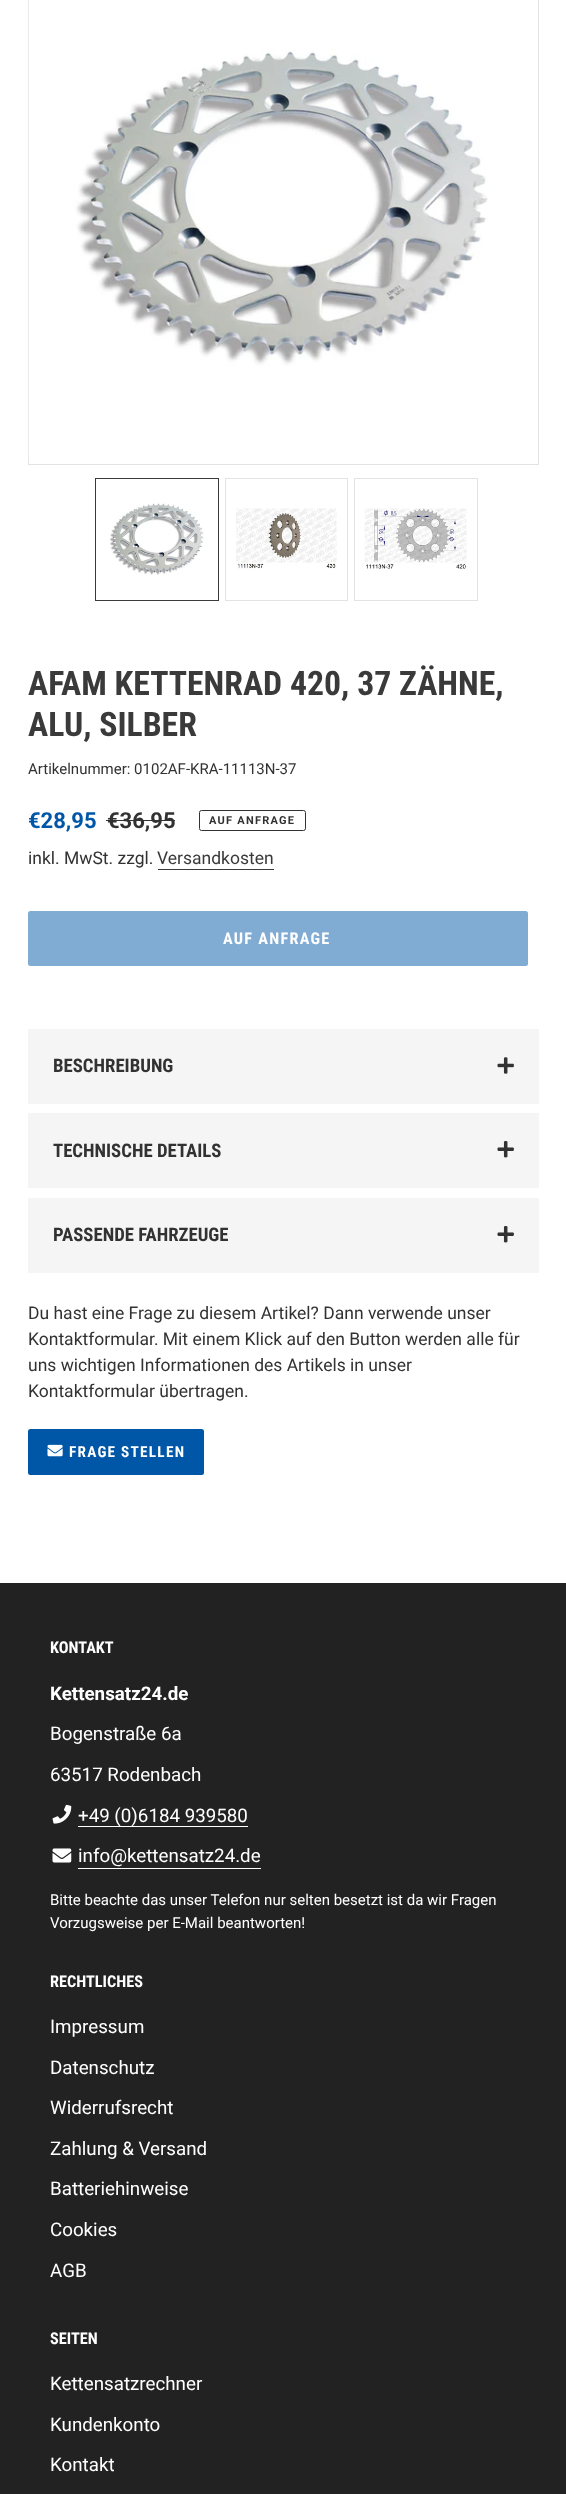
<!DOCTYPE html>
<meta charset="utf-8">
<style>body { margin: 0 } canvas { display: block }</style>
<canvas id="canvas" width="566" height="2494"></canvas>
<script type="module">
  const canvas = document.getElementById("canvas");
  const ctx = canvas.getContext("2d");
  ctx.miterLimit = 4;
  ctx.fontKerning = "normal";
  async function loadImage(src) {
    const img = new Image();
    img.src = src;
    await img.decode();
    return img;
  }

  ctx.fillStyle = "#ffffff";
  ctx.fillRect(0, 0, 566, 2494);
  ctx.strokeStyle = "#e3e3e3";
  ctx.strokeRect(28.5, -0.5, 510, 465);
  ctx.drawImage(await loadImage("img1.png"), 28, 0, 460, 461);
  ctx.strokeStyle = "#3a3a3a";
  ctx.strokeRect(95.5, 478.5, 123, 122);
  ctx.drawImage(await loadImage("img2.png"), 109, 502, 95, 73);
  ctx.strokeStyle = "#e3e3e3";
  ctx.strokeRect(225.5, 478.5, 122, 122);
  ctx.drawImage(await loadImage("img3.png"), 236, 508, 101, 62);
  ctx.strokeRect(354.5, 478.5, 123, 122);
  ctx.drawImage(await loadImage("img4.png"), 364, 508, 103, 61);
  ctx.font = "bold 33.75px Roboto Condensed";
  ctx.fillStyle = "#3a3a3a";
  ctx.fillText("AFAM KETTENRAD 420, 37 ZÄHNE,", 28, 695);
  ctx.fillText("ALU, SILBER", 28, 736);
  ctx.font = "15px Roboto";
  ctx.fillStyle = "#333232";
  ctx.fillText("Artikelnummer: 0102AF-KRA-11113N-37", 28, 774);
  ctx.font = "bold 22px Roboto";
  ctx.fillStyle = "#0056a7";
  ctx.fillText("€28,95", 28, 828);
  ctx.fillStyle = "#333232";
  ctx.fillText("€36,95", 107, 828);
  ctx.fillRect(106, 820, 69, 1);
  ctx.beginPath();
  ctx.roundRect(199.5, 810.5, 106, 20, 2);
  ctx.strokeStyle = "#333232";
  ctx.stroke();
  ctx.letterSpacing = "1.25px";
  ctx.font = "bold 11px Roboto";
  ctx.fillText("AUF ANFRAGE", 209, 824);
  ctx.letterSpacing = "0px";
  ctx.font = "17.5px Roboto";
  ctx.fillText("inkl. MwSt. zzgl.", 28, 864);
  ctx.fillStyle = "#3a3a3a";
  ctx.fillText("Versandkosten", 157, 864);
  ctx.fillRect(158, 869, 116, 1);
  ctx.fillStyle = "#80abd3";
  ctx.beginPath();
  ctx.roundRect(28, 911, 500, 55, 2.5);
  ctx.fill();
  ctx.letterSpacing = "1.25px";
  ctx.font = "bold 16.25px Roboto Condensed";
  ctx.fillStyle = "#ffffff";
  ctx.fillText("AUF ANFRAGE", 223, 944);
  ctx.fillStyle = "#f5f5f5";
  ctx.fillRect(28, 1029, 511, 75);
  ctx.letterSpacing = "0px";
  ctx.font = "bold 18.75px Roboto Condensed";
  ctx.fillStyle = "#333232";
  ctx.fillText("BESCHREIBUNG", 53, 1072);
  ctx.drawImage(await loadImage("img5.png"), 497, 1057, 17, 17);
  ctx.fillStyle = "#f5f5f5";
  ctx.fillRect(28, 1113, 511, 75);
  ctx.fillStyle = "#333232";
  ctx.fillText("TECHNISCHE DETAILS", 53, 1157);
  ctx.drawImage(await loadImage("img6.png"), 497, 1141, 17, 17);
  ctx.fillStyle = "#f5f5f5";
  ctx.fillRect(28, 1198, 511, 75);
  ctx.fillStyle = "#333232";
  ctx.fillText("PASSENDE FAHRZEUGE", 53, 1241);
  ctx.drawImage(await loadImage("img6.png"), 497, 1226, 17, 17);
  ctx.font = "17.5px Roboto";
  ctx.fillText("Du hast eine Frage zu diesem Artikel? Dann verwende unser", 28, 1319);
  ctx.fillText("Kontaktformular. Mit einem Klick auf den Button werden alle für", 28, 1345);
  ctx.fillText("uns wichtigen Informationen des Artikels in unser", 28, 1371);
  ctx.fillText("Kontaktformular übertragen.", 28, 1397);
  ctx.fillStyle = "#0056a7";
  ctx.beginPath();
  ctx.roundRect(28, 1429, 176, 46, 2.5);
  ctx.fill();
  ctx.drawImage(await loadImage("img7.png"), 47, 1444, 16, 13);
  ctx.letterSpacing = "1.25px";
  ctx.font = "bold 15.25px Roboto Condensed";
  ctx.fillStyle = "#ffffff";
  ctx.fillText("FRAGE STELLEN", 69, 1457);
  ctx.fillStyle = "#222222";
  ctx.fillRect(0, 1583, 566, 911);
  ctx.letterSpacing = "0px";
  ctx.font = "bold 16.25px Roboto Condensed";
  ctx.fillStyle = "#ffffff";
  ctx.fillText("KONTAKT", 50, 1653);
  ctx.font = "bold 18.75px Roboto";
  ctx.fillText("Kettensatz24.de", 50, 1700);
  ctx.font = "18.75px Roboto";
  ctx.fillText("Bogenstraße 6a", 50, 1740);
  ctx.fillText("63517 Rodenbach", 50, 1781);
  ctx.drawImage(await loadImage("img8.png"), 52, 1804, 20, 20);
  ctx.fillRect(78, 1826, 170, 1);
  ctx.fillText("+49 (0)6184 939580", 78, 1822);
  ctx.drawImage(await loadImage("img9.png"), 52, 1848, 20, 15);
  ctx.fillText("info@kettensatz24.de", 78, 1862);
  ctx.fillRect(78, 1868, 183, 1);
  ctx.font = "15px Roboto";
  ctx.fillText("Bitte beachte das unser Telefon nur selten besetzt ist da wir Fragen", 50, 1905);
  ctx.fillText("Vorzugsweise per E-Mail beantworten!", 50, 1928);
  ctx.font = "bold 16.25px Roboto Condensed";
  ctx.fillText("RECHTLICHES", 50, 1987);
  ctx.font = "18.75px Roboto";
  ctx.fillText("Impressum", 50, 2033);
  ctx.fillText("Datenschutz", 50, 2074);
  ctx.fillText("Widerrufsrecht", 50, 2114);
  ctx.fillText("Zahlung & Versand", 50, 2155);
  ctx.fillText("Batteriehinweise", 50, 2195);
  ctx.fillText("Cookies", 50, 2236);
  ctx.fillText("AGB", 50, 2277);
  ctx.font = "bold 16.25px Roboto Condensed";
  ctx.fillText("SEITEN", 50, 2344);
  ctx.font = "18.75px Roboto";
  ctx.fillText("Kettensatzrechner", 50, 2390);
  ctx.fillText("Kundenkonto", 50, 2431);
  ctx.fillText("Kontakt", 50, 2471);
</script>
